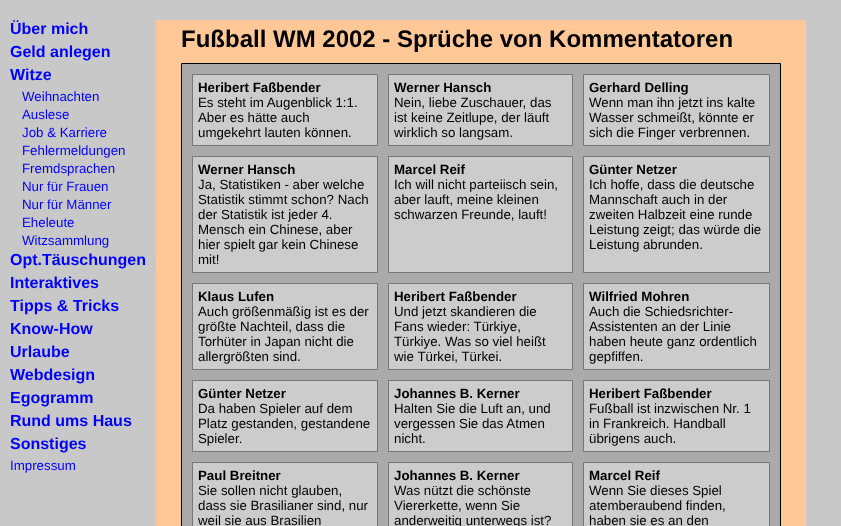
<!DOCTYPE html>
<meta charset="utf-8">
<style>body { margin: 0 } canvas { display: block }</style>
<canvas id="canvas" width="841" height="526"></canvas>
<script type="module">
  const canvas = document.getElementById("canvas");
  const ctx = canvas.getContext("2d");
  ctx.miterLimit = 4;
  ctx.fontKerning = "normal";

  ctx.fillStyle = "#c8c8c8";
  ctx.fillRect(0, 0, 841, 526);
  ctx.font = "bold 16px Liberation Sans";
  ctx.fillStyle = "#0000ff";
  ctx.fillText("Über mich", 10, 34);
  ctx.fillText("Geld anlegen", 10, 57);
  ctx.fillText("Witze", 10, 80);
  ctx.font = "13.3px Liberation Sans";
  ctx.fillText("Weihnachten", 22, 101);
  ctx.fillText("Auslese", 22, 119);
  ctx.fillText("Job & Karriere", 22, 137);
  ctx.fillText("Fehlermeldungen", 22, 155);
  ctx.fillText("Fremdsprachen", 22, 173);
  ctx.fillText("Nur für Frauen", 22, 191);
  ctx.fillText("Nur für Männer", 22, 209);
  ctx.fillText("Eheleute", 22, 227);
  ctx.fillText("Witzsammlung", 22, 245);
  ctx.font = "bold 16px Liberation Sans";
  ctx.fillText("Opt.Täuschungen", 10, 265);
  ctx.fillText("Interaktives", 10, 288);
  ctx.fillText("Tipps & Tricks", 10, 311);
  ctx.fillText("Know-How", 10, 334);
  ctx.fillText("Urlaube", 10, 357);
  ctx.fillText("Webdesign", 10, 380);
  ctx.fillText("Egogramm", 10, 403);
  ctx.fillText("Rund ums Haus", 10, 426);
  ctx.fillText("Sonstiges", 10, 449);
  ctx.font = "13.3px Liberation Sans";
  ctx.fillText("Impressum", 10, 470);
  ctx.fillStyle = "#ffc896";
  ctx.fillRect(156, 20, 25, 506);
  ctx.fillRect(181, 20, 600, 43);
  ctx.font = "bold 24px Liberation Sans";
  ctx.fillStyle = "#000000";
  ctx.fillText("Fußball WM 2002 - Sprüche von Kommentatoren", 181, 47);
  ctx.fillStyle = "#aaaaaa";
  ctx.beginPath();
  ctx.rect(181.5, 63.5, 599, 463);
  ctx.fill();
  ctx.strokeStyle = "#000000";
  ctx.stroke();
  ctx.fillStyle = "#cccccc";
  ctx.beginPath();
  ctx.rect(192.5, 74.5, 185, 71);
  ctx.fill();
  ctx.strokeStyle = "#777777";
  ctx.stroke();
  ctx.font = "bold 13.3px Liberation Sans";
  ctx.fillStyle = "#000000";
  ctx.fillText("Heribert Faßbender", 198, 92);
  ctx.font = "13.3px Liberation Sans";
  ctx.fillText("Es steht im Augenblick 1:1.", 198, 107);
  ctx.fillText("Aber es hätte auch", 198, 122);
  ctx.fillText("umgekehrt lauten können.", 198, 137);
  ctx.fillStyle = "#cccccc";
  ctx.beginPath();
  ctx.rect(388.5, 74.5, 184, 71);
  ctx.fill();
  ctx.stroke();
  ctx.font = "bold 13.3px Liberation Sans";
  ctx.fillStyle = "#000000";
  ctx.fillText("Werner Hansch", 394, 92);
  ctx.font = "13.3px Liberation Sans";
  ctx.fillText("Nein, liebe Zuschauer, das", 394, 107);
  ctx.fillText("ist keine Zeitlupe, der läuft", 394, 122);
  ctx.fillText("wirklich so langsam.", 394, 137);
  ctx.fillStyle = "#cccccc";
  ctx.beginPath();
  ctx.rect(583.5, 74.5, 186, 71);
  ctx.fill();
  ctx.stroke();
  ctx.font = "bold 13.3px Liberation Sans";
  ctx.fillStyle = "#000000";
  ctx.fillText("Gerhard Delling", 589, 92);
  ctx.font = "13.3px Liberation Sans";
  ctx.fillText("Wenn man ihn jetzt ins kalte", 589, 107);
  ctx.fillText("Wasser schmeißt, könnte er", 589, 122);
  ctx.fillText("sich die Finger verbrennen.", 589, 137);
  ctx.fillStyle = "#cccccc";
  ctx.beginPath();
  ctx.rect(192.5, 156.5, 185, 116);
  ctx.fill();
  ctx.stroke();
  ctx.font = "bold 13.3px Liberation Sans";
  ctx.fillStyle = "#000000";
  ctx.fillText("Werner Hansch", 198, 174);
  ctx.font = "13.3px Liberation Sans";
  ctx.fillText("Ja, Statistiken - aber welche", 198, 189);
  ctx.fillText("Statistik stimmt schon? Nach", 198, 204);
  ctx.fillText("der Statistik ist jeder 4.", 198, 219);
  ctx.fillText("Mensch ein Chinese, aber", 198, 234);
  ctx.fillText("hier spielt gar kein Chinese", 198, 249);
  ctx.fillText("mit!", 198, 264);
  ctx.fillStyle = "#cccccc";
  ctx.beginPath();
  ctx.rect(388.5, 156.5, 184, 116);
  ctx.fill();
  ctx.stroke();
  ctx.font = "bold 13.3px Liberation Sans";
  ctx.fillStyle = "#000000";
  ctx.fillText("Marcel Reif", 394, 174);
  ctx.font = "13.3px Liberation Sans";
  ctx.fillText("Ich will nicht parteiisch sein,", 394, 189);
  ctx.fillText("aber lauft, meine kleinen", 394, 204);
  ctx.fillText("schwarzen Freunde, lauft!", 394, 219);
  ctx.fillStyle = "#cccccc";
  ctx.beginPath();
  ctx.rect(583.5, 156.5, 186, 116);
  ctx.fill();
  ctx.stroke();
  ctx.font = "bold 13.3px Liberation Sans";
  ctx.fillStyle = "#000000";
  ctx.fillText("Günter Netzer", 589, 174);
  ctx.font = "13.3px Liberation Sans";
  ctx.fillText("Ich hoffe, dass die deutsche", 589, 189);
  ctx.fillText("Mannschaft auch in der", 589, 204);
  ctx.fillText("zweiten Halbzeit eine runde", 589, 219);
  ctx.fillText("Leistung zeigt; das würde die", 589, 234);
  ctx.fillText("Leistung abrunden.", 589, 249);
  ctx.fillStyle = "#cccccc";
  ctx.beginPath();
  ctx.rect(192.5, 283.5, 185, 86);
  ctx.fill();
  ctx.stroke();
  ctx.font = "bold 13.3px Liberation Sans";
  ctx.fillStyle = "#000000";
  ctx.fillText("Klaus Lufen", 198, 301);
  ctx.font = "13.3px Liberation Sans";
  ctx.fillText("Auch größenmäßig ist es der", 198, 316);
  ctx.fillText("größte Nachteil, dass die", 198, 331);
  ctx.fillText("Torhüter in Japan nicht die", 198, 346);
  ctx.fillText("allergrößten sind.", 198, 361);
  ctx.fillStyle = "#cccccc";
  ctx.beginPath();
  ctx.rect(388.5, 283.5, 184, 86);
  ctx.fill();
  ctx.stroke();
  ctx.font = "bold 13.3px Liberation Sans";
  ctx.fillStyle = "#000000";
  ctx.fillText("Heribert Faßbender", 394, 301);
  ctx.font = "13.3px Liberation Sans";
  ctx.fillText("Und jetzt skandieren die", 394, 316);
  ctx.fillText("Fans wieder: Türkiye,", 394, 331);
  ctx.fillText("Türkiye. Was so viel heißt", 394, 346);
  ctx.fillText("wie Türkei, Türkei.", 394, 361);
  ctx.fillStyle = "#cccccc";
  ctx.beginPath();
  ctx.rect(583.5, 283.5, 186, 86);
  ctx.fill();
  ctx.stroke();
  ctx.font = "bold 13.3px Liberation Sans";
  ctx.fillStyle = "#000000";
  ctx.fillText("Wilfried Mohren", 589, 301);
  ctx.font = "13.3px Liberation Sans";
  ctx.fillText("Auch die Schiedsrichter-", 589, 316);
  ctx.fillText("Assistenten an der Linie", 589, 331);
  ctx.fillText("haben heute ganz ordentlich", 589, 346);
  ctx.fillText("gepfiffen.", 589, 361);
  ctx.fillStyle = "#cccccc";
  ctx.beginPath();
  ctx.rect(192.5, 380.5, 185, 71);
  ctx.fill();
  ctx.stroke();
  ctx.font = "bold 13.3px Liberation Sans";
  ctx.fillStyle = "#000000";
  ctx.fillText("Günter Netzer", 198, 398);
  ctx.font = "13.3px Liberation Sans";
  ctx.fillText("Da haben Spieler auf dem", 198, 413);
  ctx.fillText("Platz gestanden, gestandene", 198, 428);
  ctx.fillText("Spieler.", 198, 443);
  ctx.fillStyle = "#cccccc";
  ctx.beginPath();
  ctx.rect(388.5, 380.5, 184, 71);
  ctx.fill();
  ctx.stroke();
  ctx.font = "bold 13.3px Liberation Sans";
  ctx.fillStyle = "#000000";
  ctx.fillText("Johannes B. Kerner", 394, 398);
  ctx.font = "13.3px Liberation Sans";
  ctx.fillText("Halten Sie die Luft an, und", 394, 413);
  ctx.fillText("vergessen Sie das Atmen", 394, 428);
  ctx.fillText("nicht.", 394, 443);
  ctx.fillStyle = "#cccccc";
  ctx.beginPath();
  ctx.rect(583.5, 380.5, 186, 71);
  ctx.fill();
  ctx.stroke();
  ctx.font = "bold 13.3px Liberation Sans";
  ctx.fillStyle = "#000000";
  ctx.fillText("Heribert Faßbender", 589, 398);
  ctx.font = "13.3px Liberation Sans";
  ctx.fillText("Fußball ist inzwischen Nr. 1", 589, 413);
  ctx.fillText("in Frankreich. Handball", 589, 428);
  ctx.fillText("übrigens auch.", 589, 443);
  ctx.fillStyle = "#cccccc";
  ctx.beginPath();
  ctx.rect(192.5, 462.5, 185, 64);
  ctx.fill();
  ctx.stroke();
  ctx.font = "bold 13.3px Liberation Sans";
  ctx.fillStyle = "#000000";
  ctx.fillText("Paul Breitner", 198, 480);
  ctx.font = "13.3px Liberation Sans";
  ctx.fillText("Sie sollen nicht glauben,", 198, 495);
  ctx.fillText("dass sie Brasilianer sind, nur", 198, 510);
  ctx.fillText("weil sie aus Brasilien", 198, 525);
  ctx.fillStyle = "#cccccc";
  ctx.beginPath();
  ctx.rect(388.5, 462.5, 184, 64);
  ctx.fill();
  ctx.stroke();
  ctx.font = "bold 13.3px Liberation Sans";
  ctx.fillStyle = "#000000";
  ctx.fillText("Johannes B. Kerner", 394, 480);
  ctx.font = "13.3px Liberation Sans";
  ctx.fillText("Was nützt die schönste", 394, 495);
  ctx.fillText("Viererkette, wenn Sie", 394, 510);
  ctx.fillText("anderweitig unterwegs ist?", 394, 525);
  ctx.fillStyle = "#cccccc";
  ctx.beginPath();
  ctx.rect(583.5, 462.5, 186, 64);
  ctx.fill();
  ctx.stroke();
  ctx.font = "bold 13.3px Liberation Sans";
  ctx.fillStyle = "#000000";
  ctx.fillText("Marcel Reif", 589, 480);
  ctx.font = "13.3px Liberation Sans";
  ctx.fillText("Wenn Sie dieses Spiel", 589, 495);
  ctx.fillText("atemberaubend finden,", 589, 510);
  ctx.fillText("haben sie es an den", 589, 525);
  ctx.fillStyle = "#ffc896";
  ctx.fillRect(781, 20, 25, 506);
</script>
